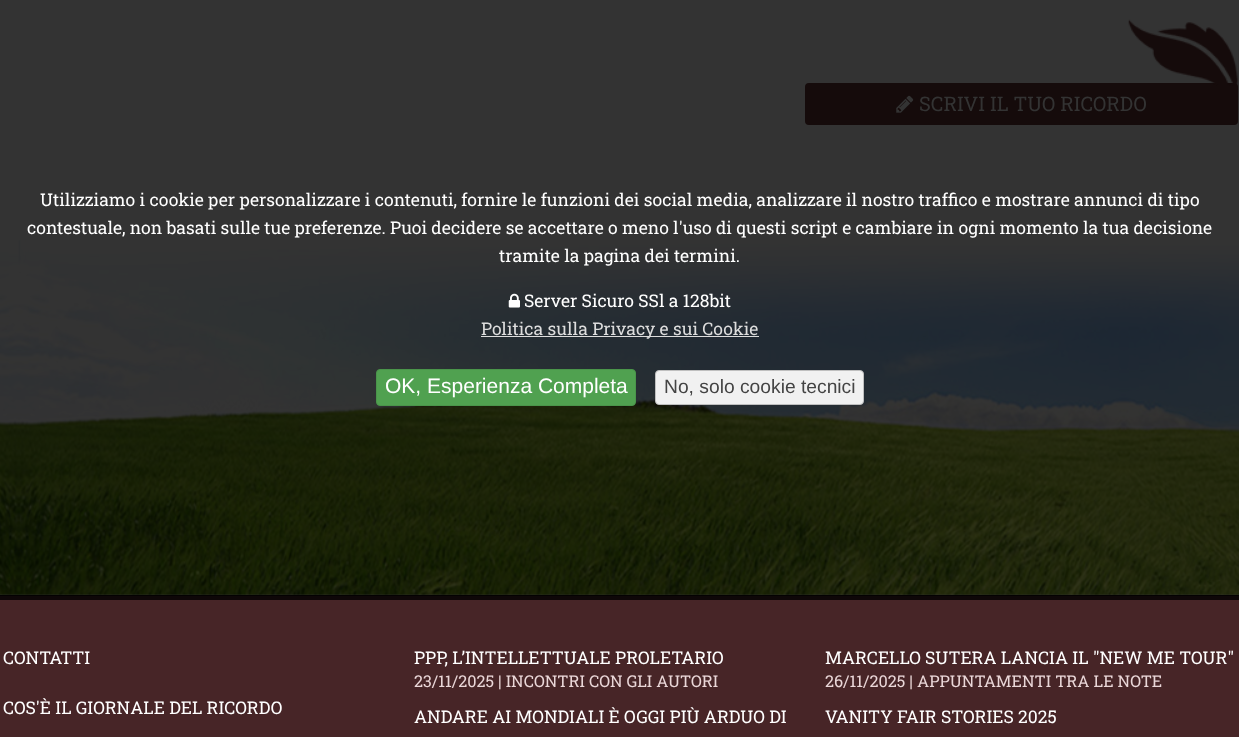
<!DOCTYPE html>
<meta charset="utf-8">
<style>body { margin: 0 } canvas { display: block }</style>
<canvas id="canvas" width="1239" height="737"></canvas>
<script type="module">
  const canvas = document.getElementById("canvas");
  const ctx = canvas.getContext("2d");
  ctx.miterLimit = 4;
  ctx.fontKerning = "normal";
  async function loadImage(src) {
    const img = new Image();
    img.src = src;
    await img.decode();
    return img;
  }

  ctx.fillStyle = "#333333";
  ctx.fillRect(0, 0, 1239, 737);
  ctx.fillStyle = "#150b0b";
  ctx.beginPath();
  ctx.roundRect(805, 83, 433, 42, 4);
  ctx.fill();
  ctx.drawImage(await loadImage("img1.png"), 1128, 19, 110, 67);
  ctx.drawImage(await loadImage("img2.png"), 896, 95, 18, 18);
  ctx.font = "20px Roboto Slab";
  ctx.fillStyle = "#333333";
  ctx.fillText("SCRIVI IL TUO RICORDO", 919, 111);
  ctx.drawImage(await loadImage("img3.png"), 0, 240, 1239, 355);
  ctx.fillStyle = "#472527";
  ctx.fillRect(0, 600, 1239, 137);
  ctx.fillStyle = "#0e0708";
  ctx.fillRect(0, 596, 1239, 4);
  ctx.fillStyle = "#040202";
  ctx.fillRect(0, 595, 1239, 1);
  ctx.font = "17.5px Roboto Slab";
  ctx.fillStyle = "#ffffff";
  ctx.fillText("CONTATTI", 3, 664);
  ctx.fillText("COS'È IL GIORNALE DEL RICORDO", 3, 714);
  ctx.fillText("PPP, L’INTELLETTUALE PROLETARIO", 414, 664);
  ctx.font = "16.25px Roboto Slab";
  ctx.fillStyle = "#ead7d8";
  ctx.fillText("23/11/2025 | INCONTRI CON GLI AUTORI", 414, 687);
  ctx.font = "17.5px Roboto Slab";
  ctx.fillStyle = "#ffffff";
  ctx.fillText("ANDARE AI MONDIALI È OGGI PIÙ ARDUO DI", 414, 723);
  ctx.fillText("MARCELLO SUTERA LANCIA IL \"NEW ME TOUR\"", 825, 664);
  ctx.font = "16.25px Roboto Slab";
  ctx.fillStyle = "#ead7d8";
  ctx.fillText("26/11/2025 | APPUNTAMENTI TRA LE NOTE", 825, 687);
  ctx.font = "17.5px Roboto Slab";
  ctx.fillStyle = "#ffffff";
  ctx.fillText("VANITY FAIR STORIES 2025", 825, 723);
  ctx.fillText("Utilizziamo i cookie per personalizzare i contenuti, fornire le funzioni dei social media, analizzare il nostro traffico e mostrare annunci di tipo", 40, 206);
  ctx.fillText("contestuale, non basati sulle tue preferenze. Puoi decidere se accettare o meno l'uso di questi script e cambiare in ogni momento la tua decisione", 27, 234);
  ctx.fillText("tramite la pagina dei termini.", 499, 262);
  ctx.drawImage(await loadImage("img4.png"), 508, 293, 12, 15);
  ctx.fillText("Server Sicuro SSl a 128bit", 524, 307);
  ctx.fillStyle = "#dddddd";
  ctx.fillRect(481, 336, 278, 1);
  ctx.fillText("Politica sulla Privacy e sui Cookie", 481, 335);
  ctx.fillStyle = "#50a150";
  ctx.beginPath();
  ctx.roundRect(376.5, 369.5, 259, 36, 3.5);
  ctx.fill();
  ctx.strokeStyle = "#4a954a";
  ctx.stroke();
  ctx.font = "21px Liberation Sans";
  ctx.fillStyle = "#ffffff";
  ctx.fillText("OK, Esperienza Completa", 385, 393);
  ctx.fillStyle = "#f1f1f1";
  ctx.beginPath();
  ctx.roundRect(655.5, 370.5, 208, 34, 3.5);
  ctx.fill();
  ctx.strokeStyle = "#bfbfbf";
  ctx.stroke();
  ctx.font = "19.25px Liberation Sans";
  ctx.fillStyle = "#444444";
  ctx.fillText("No, solo cookie tecnici", 664, 393);
</script>
